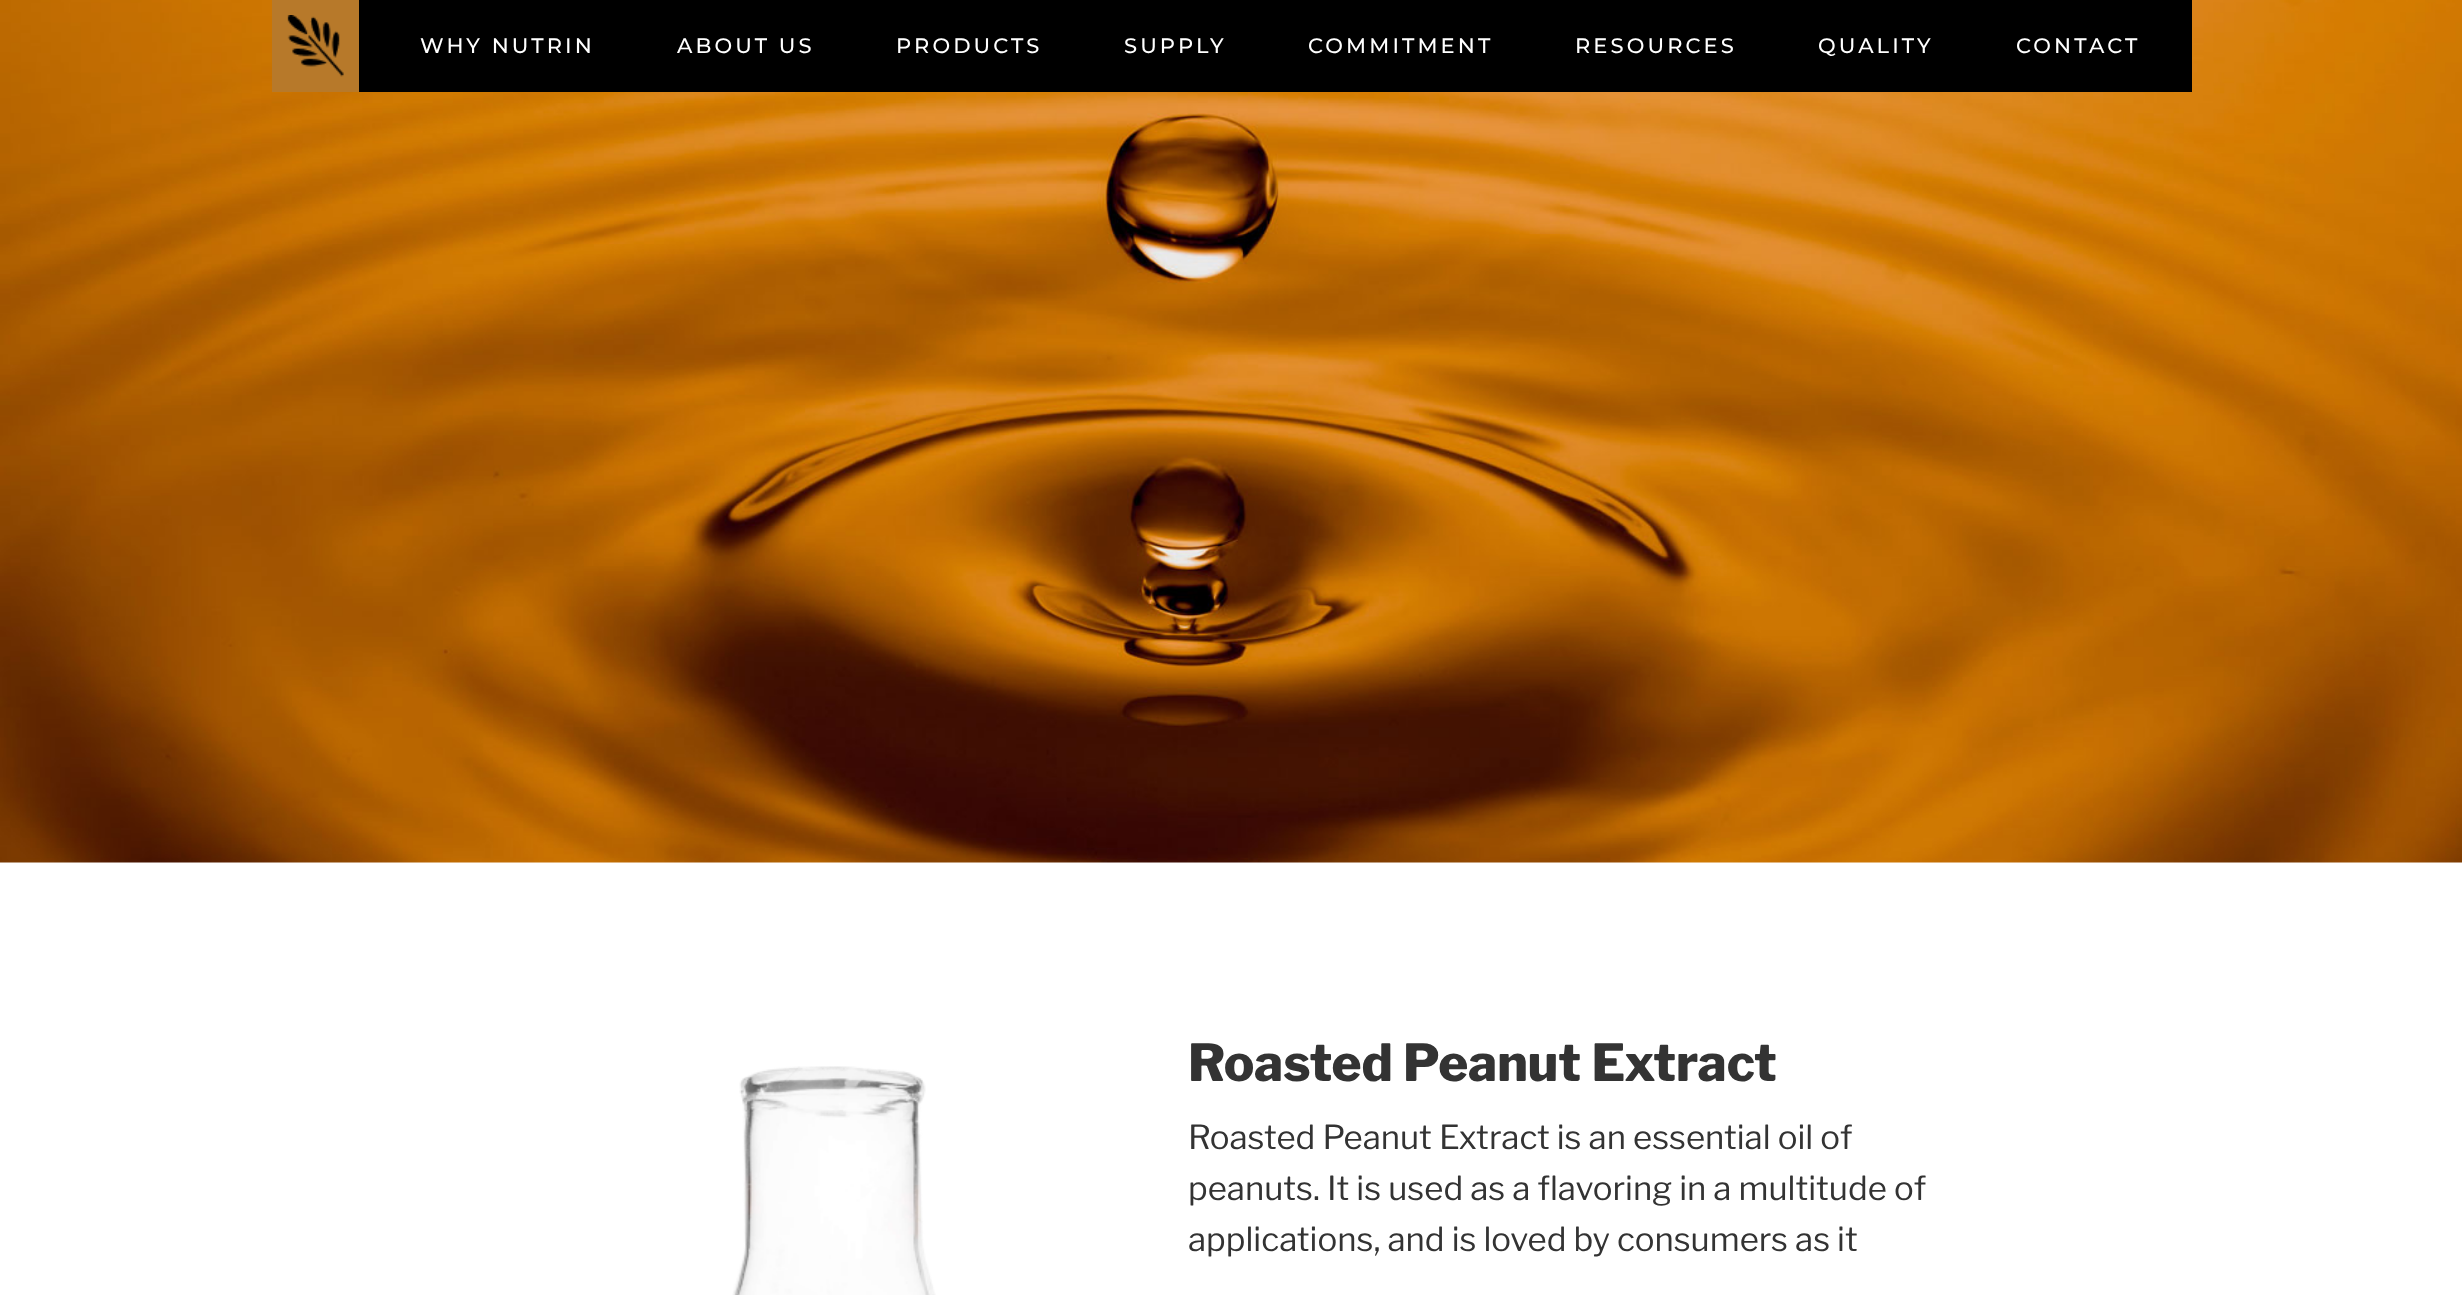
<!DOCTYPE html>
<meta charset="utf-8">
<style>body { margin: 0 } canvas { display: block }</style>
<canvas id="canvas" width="2462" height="1295"></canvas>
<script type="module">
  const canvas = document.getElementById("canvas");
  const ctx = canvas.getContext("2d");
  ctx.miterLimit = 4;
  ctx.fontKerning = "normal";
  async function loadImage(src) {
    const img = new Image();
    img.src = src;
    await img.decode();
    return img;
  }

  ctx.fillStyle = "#ffffff";
  ctx.fillRect(0, 0, 2462, 1295);
  ctx.drawImage(await loadImage("img1.png"), 0, 0, 2462, 863);
  ctx.fillStyle = "#000000";
  ctx.fillRect(359, 0, 1833, 92);
  ctx.fillStyle = "#b7792a";
  ctx.fillRect(272, 0, 87, 92);
  ctx.drawImage(await loadImage("img2.png"), 287, 15, 57, 62);
  ctx.letterSpacing = "3.1px";
  ctx.font = "500 21px Montserrat";
  ctx.fillStyle = "#ffffff";
  ctx.fillText("WHY NUTRIN", 420, 53);
  ctx.fillText("ABOUT US", 677, 53);
  ctx.fillText("PRODUCTS", 896, 53);
  ctx.fillText("SUPPLY", 1124, 53);
  ctx.fillText("COMMITMENT", 1308, 53);
  ctx.fillText("RESOURCES", 1575, 53);
  ctx.fillText("QUALITY", 1818, 53);
  ctx.fillText("CONTACT", 2016, 53);
  ctx.drawImage(await loadImage("img3.png"), 732, 1066, 204, 229);
  ctx.letterSpacing = "0px";
  ctx.font = "800 51px Libre Franklin";
  ctx.fillStyle = "#333333";
  ctx.fillText("Roasted Peanut Extract", 1188, 1081);
  ctx.font = "33px Libre Franklin";
  ctx.fillText("Roasted Peanut Extract is an essential oil of", 1188, 1149);
  ctx.fillText("peanuts. It is used as a flavoring in a multitude of", 1188, 1200);
  ctx.fillText("applications, and is loved by consumers as it", 1188, 1251);
</script>
